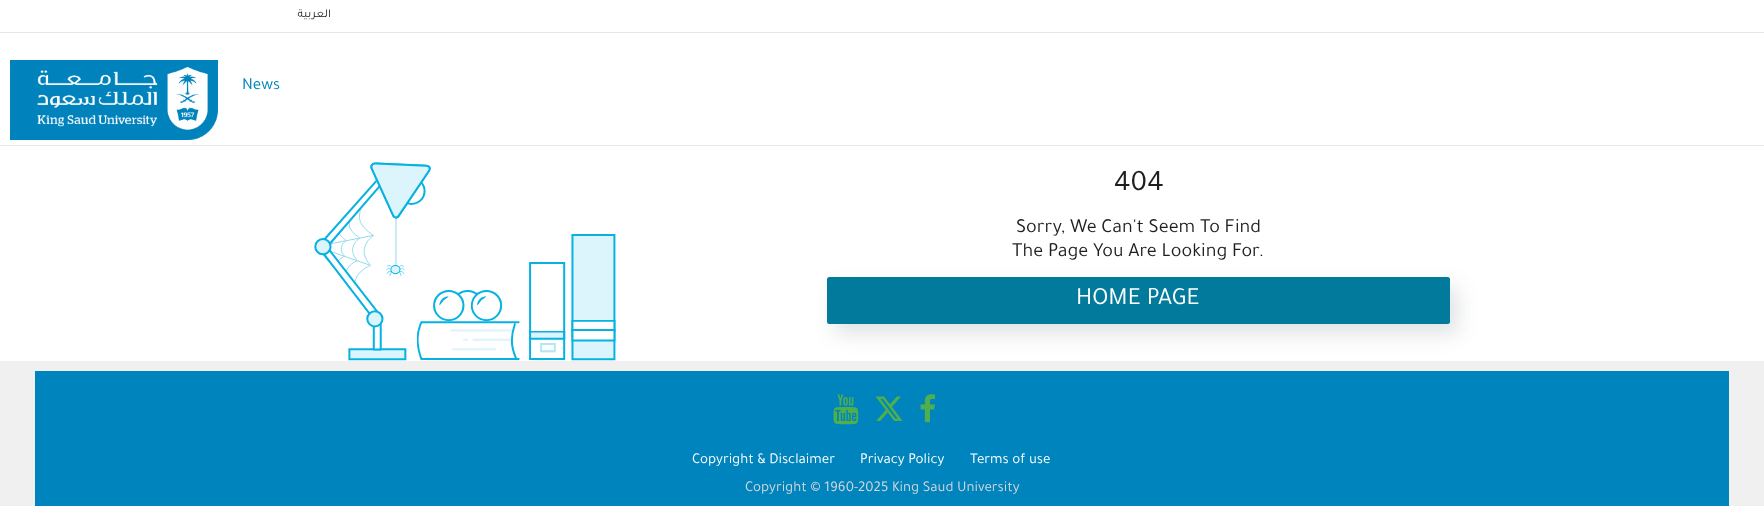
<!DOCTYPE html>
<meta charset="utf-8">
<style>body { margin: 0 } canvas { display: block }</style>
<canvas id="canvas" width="1764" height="506"></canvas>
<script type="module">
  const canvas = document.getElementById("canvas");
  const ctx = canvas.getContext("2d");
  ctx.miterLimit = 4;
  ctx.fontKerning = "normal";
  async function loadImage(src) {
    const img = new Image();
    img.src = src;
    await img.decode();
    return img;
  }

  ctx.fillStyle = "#ffffff";
  ctx.fillRect(0, 0, 1764, 506);
  ctx.fillStyle = "#f0f0f0";
  ctx.fillRect(0, 361, 1764, 145);
  ctx.fillStyle = "#e6e6e6";
  ctx.fillRect(0, 145, 1764, 1);
  ctx.fillStyle = "#e7e7e7";
  ctx.fillRect(0, 32, 1764, 1);
  ctx.direction = "rtl";
  ctx.font = "12px Tajawal";
  ctx.fillStyle = "#1f1f1f";
  ctx.fillText("العربية", 331, 17);
  ctx.drawImage(await loadImage("img1.png"), 10, 60, 208, 80);
  ctx.direction = "ltr";
  ctx.font = "17px Tajawal";
  ctx.fillStyle = "#0084bd";
  ctx.fillText("News", 242, 89);
  ctx.drawImage(await loadImage("img2.png"), 314, 162, 302, 199);
  ctx.font = "30px Tajawal";
  ctx.fillStyle = "#1f1f1f";
  ctx.fillText("404", 1114, 190);
  ctx.font = "20px Tajawal";
  ctx.fillText("Sorry, We Can't Seem To Find", 1016, 232);
  ctx.fillStyle = "rgba(46, 61, 73, 0.15)";
  ctx.filter = "blur(10px)";
  ctx.beginPath();
  ctx.roundRect(835, 287, 623, 47, 2.5);
  ctx.fill();
  ctx.filter = "none";
  ctx.fillStyle = "#1f1f1f";
  ctx.fillText("The Page You Are Looking For.", 1012, 256);
  ctx.fillStyle = "#017a9b";
  ctx.beginPath();
  ctx.roundRect(827, 277, 623, 47, 2.5);
  ctx.fill();
  ctx.font = "25px Tajawal";
  ctx.fillStyle = "#ffffff";
  ctx.fillText("HOME PAGE", 1076, 304);
  ctx.fillStyle = "#0084bd";
  ctx.fillRect(35, 371, 1694, 135);
  ctx.drawImage(await loadImage("img3.png"), 833, 394, 26, 31);
  ctx.drawImage(await loadImage("img4.png"), 875, 396, 28, 25);
  ctx.drawImage(await loadImage("img5.png"), 920, 394, 16, 29);
  ctx.font = "15px Tajawal";
  ctx.fillStyle = "#ffffff";
  ctx.fillText("Copyright & Disclaimer", 692, 463);
  ctx.fillText("Privacy Policy", 860, 463);
  ctx.fillText("Terms of use", 970, 463);
  ctx.fillStyle = "#d5d7d8";
  ctx.fillText("Copyright © 1960-2025 King Saud University", 745, 491);
</script>
